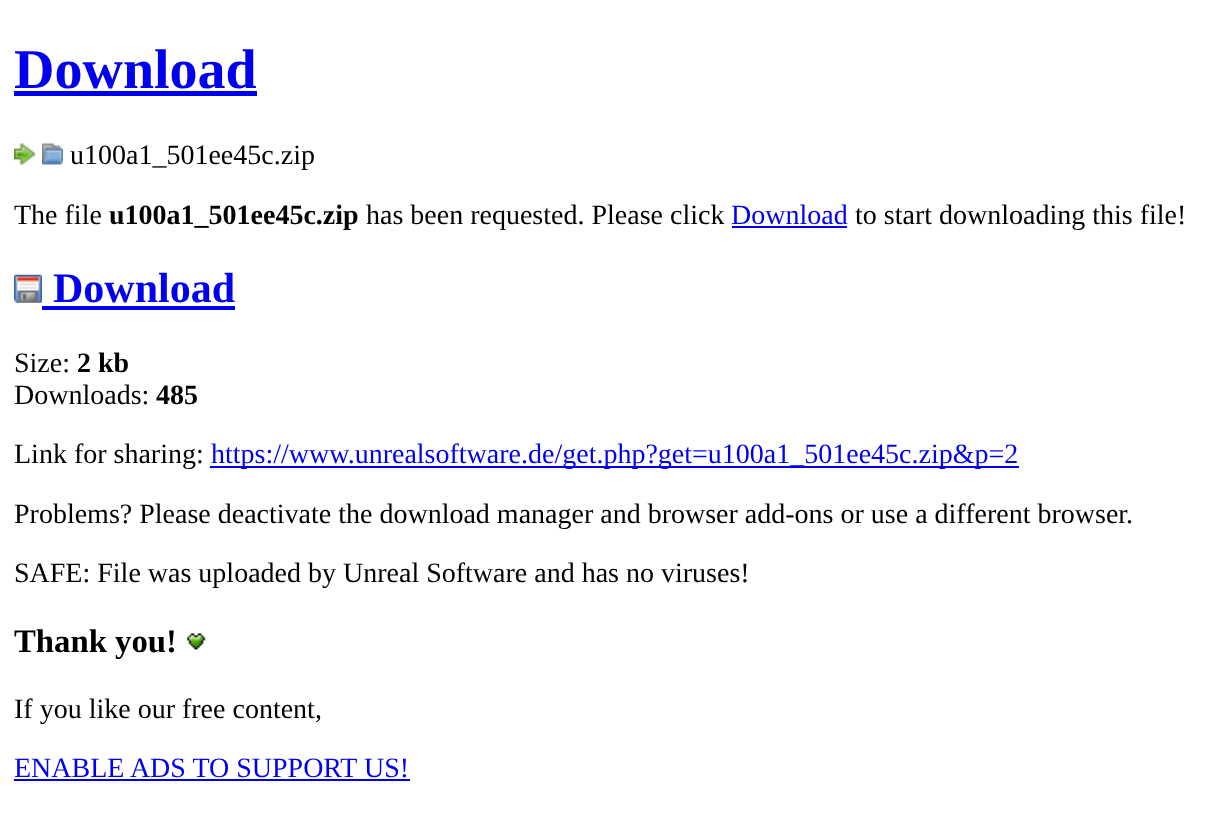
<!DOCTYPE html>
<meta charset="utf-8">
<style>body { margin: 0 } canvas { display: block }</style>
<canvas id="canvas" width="1211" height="831"></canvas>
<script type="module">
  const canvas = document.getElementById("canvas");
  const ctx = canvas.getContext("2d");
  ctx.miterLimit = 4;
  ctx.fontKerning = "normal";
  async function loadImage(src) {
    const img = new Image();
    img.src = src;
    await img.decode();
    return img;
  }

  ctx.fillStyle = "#ffffff";
  ctx.fillRect(0, 0, 1211, 831);
  ctx.font = "bold 56px Liberation Serif";
  ctx.fillStyle = "#0000ee";
  ctx.fillText("Download", 14, 88);
  ctx.fillRect(14, 91, 243, 5);
  ctx.drawImage(await loadImage("img1.png"), 14, 143, 21, 22);
  ctx.drawImage(await loadImage("img2.png"), 42, 143, 21, 22);
  ctx.font = "28px Liberation Serif";
  ctx.fillStyle = "#000000";
  ctx.fillText("u100a1_501ee45c.zip", 70, 164);
  ctx.fillText("The file", 14, 224);
  ctx.font = "bold 28px Liberation Serif";
  ctx.fillText("u100a1_501ee45c.zip", 109, 224);
  ctx.font = "28px Liberation Serif";
  ctx.fillText("has been requested. Please click", 366, 224);
  ctx.fillStyle = "#0000ee";
  ctx.fillText("Download", 731, 224);
  ctx.fillRect(732, 226, 115, 2);
  ctx.fillStyle = "#000000";
  ctx.fillText("to start downloading this file!", 855, 224);
  ctx.drawImage(await loadImage("img3.png"), 14, 274, 28, 29);
  ctx.font = "bold 42px Liberation Serif";
  ctx.fillStyle = "#0000ee";
  ctx.fillText("Download", 53, 302);
  ctx.fillRect(42, 306, 193, 4);
  ctx.font = "28px Liberation Serif";
  ctx.fillStyle = "#000000";
  ctx.fillText("Size:", 14, 372);
  ctx.font = "bold 28px Liberation Serif";
  ctx.fillText("2 kb", 77, 372);
  ctx.font = "28px Liberation Serif";
  ctx.fillText("Downloads:", 14, 404);
  ctx.font = "bold 28px Liberation Serif";
  ctx.fillText("485", 156, 404);
  ctx.font = "28px Liberation Serif";
  ctx.fillText("Link for sharing:", 14, 463);
  ctx.fillStyle = "#0000ee";
  ctx.fillRect(210, 466, 809, 2);
  ctx.fillText("https://www.unrealsoftware.de/get.php?get=u100a1_501ee45c.zip&p=2", 211, 463);
  ctx.fillStyle = "#000000";
  ctx.fillText("Problems? Please deactivate the download manager and browser add-ons or use a different browser.", 14, 523);
  ctx.fillText("SAFE: File was uploaded by Unreal Software and has no viruses!", 14, 582);
  ctx.font = "bold 32.75px Liberation Serif";
  ctx.fillText("Thank you!", 14, 652);
  ctx.drawImage(await loadImage("img4.png"), 186, 633, 20, 17);
  ctx.font = "28px Liberation Serif";
  ctx.fillText("If you like our free content,", 14, 718);
  ctx.fillStyle = "#0000ee";
  ctx.fillText("ENABLE ADS TO SUPPORT US!", 14, 777);
  ctx.fillRect(14, 779, 396, 2);
</script>
